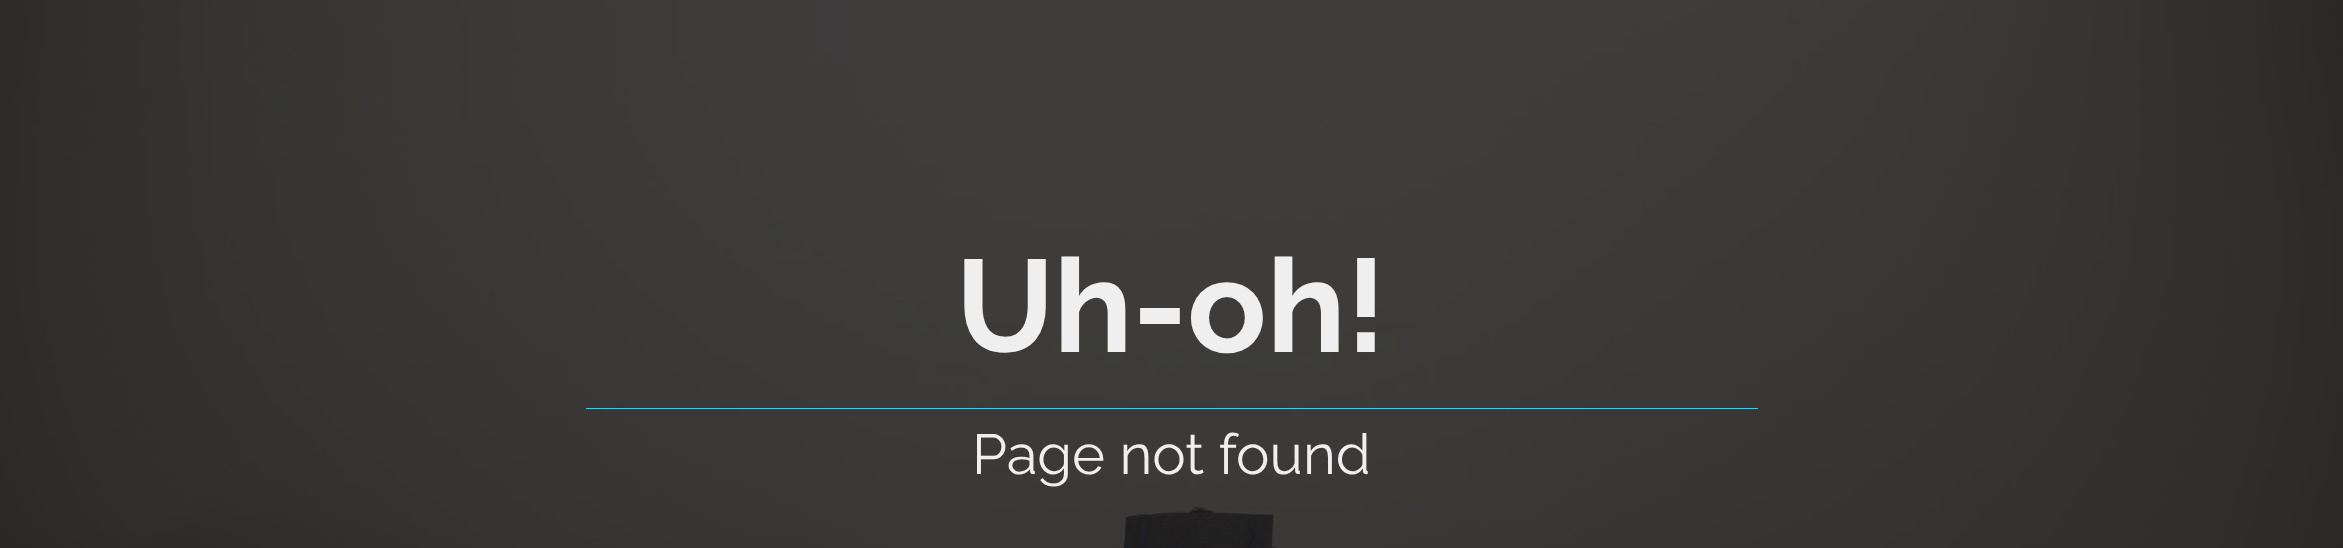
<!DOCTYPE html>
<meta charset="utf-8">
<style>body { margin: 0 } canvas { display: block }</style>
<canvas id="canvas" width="2343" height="548"></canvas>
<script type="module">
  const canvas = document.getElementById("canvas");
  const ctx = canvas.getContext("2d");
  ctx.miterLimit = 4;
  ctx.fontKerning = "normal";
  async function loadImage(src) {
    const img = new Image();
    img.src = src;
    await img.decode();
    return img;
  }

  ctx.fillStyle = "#ffffff";
  ctx.fillRect(0, 0, 2343, 548);
  ctx.drawImage(await loadImage("img1.png"), 0, 0, 2343, 548);
  ctx.font = "bold 131px Raleway";
  ctx.fillStyle = "#efefef";
  ctx.fillText("Uh-oh!", 956, 352);
  ctx.fillStyle = "#47c9e5";
  ctx.fillRect(586, 408, 1172, 1);
  ctx.font = "56.25px Raleway";
  ctx.fillStyle = "#efefef";
  ctx.fillText("Page not found", 972, 474);
</script>
